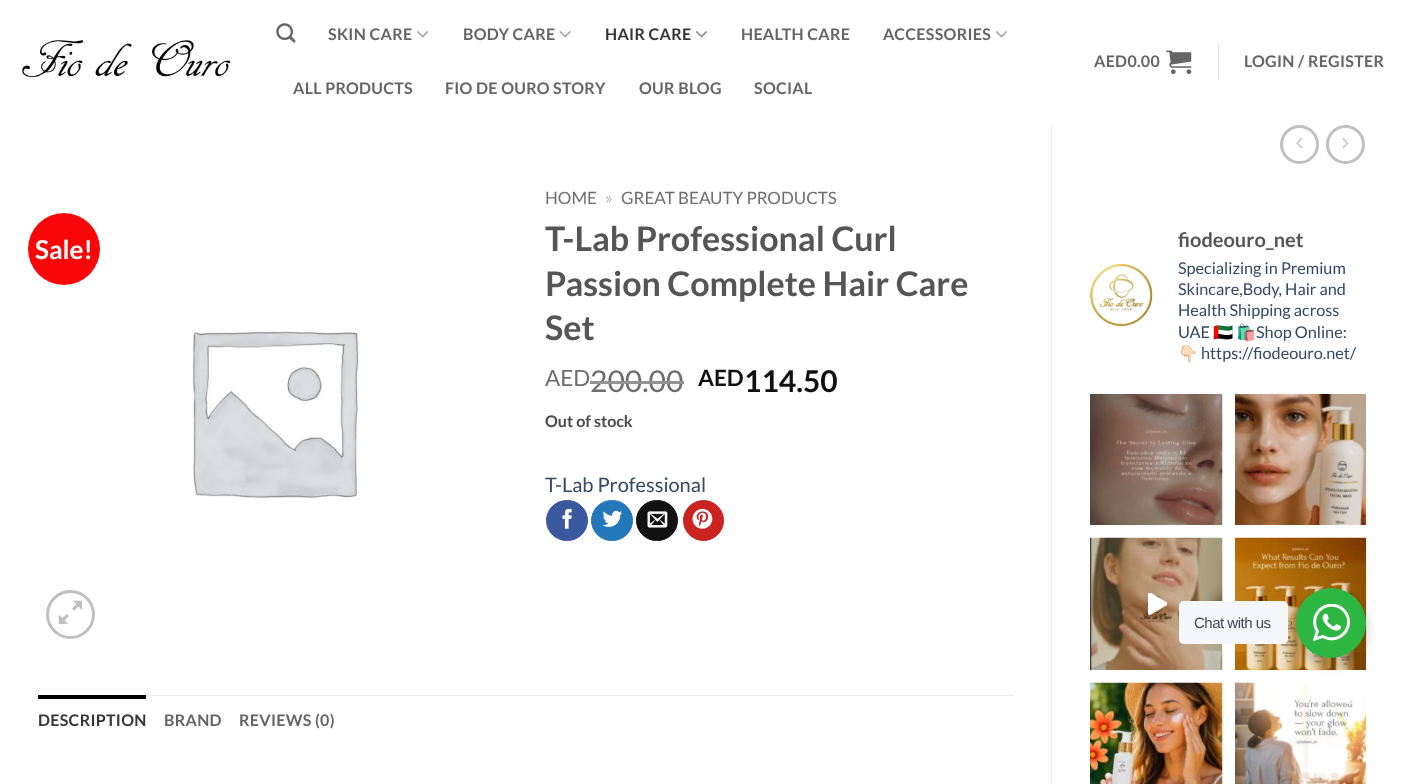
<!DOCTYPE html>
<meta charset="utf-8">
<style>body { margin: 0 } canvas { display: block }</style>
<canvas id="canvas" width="1403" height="784"></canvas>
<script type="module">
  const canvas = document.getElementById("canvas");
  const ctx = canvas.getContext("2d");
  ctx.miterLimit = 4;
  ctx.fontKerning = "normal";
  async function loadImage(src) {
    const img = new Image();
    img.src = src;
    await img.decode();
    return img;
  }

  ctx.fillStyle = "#ffffff";
  ctx.fillRect(0, 0, 1403, 784);
  ctx.drawImage(await loadImage("img1.png"), 22, 40, 209, 38);
  ctx.drawImage(await loadImage("img2.png"), 276, 23, 20, 20);
  ctx.letterSpacing = "0.3px";
  ctx.font = "bold 16px Lato";
  ctx.fillStyle = "#656565";
  ctx.fillText("SKIN CARE", 328, 40);
  ctx.drawImage(await loadImage("img3.png"), 417, 31, 12, 7);
  ctx.fillText("BODY CARE", 463, 40);
  ctx.drawImage(await loadImage("img4.png"), 559, 31, 12, 7);
  ctx.fillStyle = "#363636";
  ctx.fillText("HAIR CARE", 605, 40);
  ctx.drawImage(await loadImage("img5.png"), 696, 31, 11, 7);
  ctx.fillStyle = "#656565";
  ctx.fillText("HEALTH CARE", 741, 40);
  ctx.fillText("ACCESSORIES", 883, 40);
  ctx.drawImage(await loadImage("img6.png"), 996, 31, 11, 7);
  ctx.fillText("ALL PRODUCTS", 293, 94);
  ctx.fillText("FIO DE OURO STORY", 445, 94);
  ctx.fillText("OUR BLOG", 639, 94);
  ctx.fillText("SOCIAL", 754, 94);
  ctx.fillText("AED0.00", 1094, 67);
  ctx.drawImage(await loadImage("img7.png"), 1166, 50, 26, 24);
  ctx.fillStyle = "#e6e6e6";
  ctx.fillRect(1218, 43, 1, 37);
  ctx.fillStyle = "#656565";
  ctx.fillText("LOGIN / REGISTER", 1244, 67);
  ctx.fillStyle = "#ececec";
  ctx.fillRect(1051, 125, 1, 659);
  ctx.fillStyle = "#f70707";
  ctx.beginPath();
  ctx.arc(64, 249, 36, 0, Math.PI * 2);
  ctx.fill();
  ctx.letterSpacing = "0px";
  ctx.font = "bold 26px Lato";
  ctx.fillStyle = "#ffffff";
  ctx.fillText("Sale!", 35, 259);
  ctx.drawImage(await loadImage("img8.png"), 191, 331, 169, 168);
  ctx.beginPath();
  ctx.arc(70.5, 614.5, 23, 0, Math.PI * 2);
  ctx.strokeStyle = "#c0c0c0";
  ctx.lineWidth = 3;
  ctx.stroke();
  ctx.drawImage(await loadImage("img9.png"), 58, 600, 24, 24);
  ctx.font = "17px Lato";
  ctx.fillStyle = "#6e6e6e";
  ctx.fillText("HOME", 545, 204);
  ctx.fillStyle = "#b2b2b2";
  ctx.fillText("»", 605, 204);
  ctx.fillStyle = "#6e6e6e";
  ctx.fillText("GREAT BEAUTY PRODUCTS", 621, 204);
  ctx.font = "bold 34px Lato";
  ctx.fillStyle = "#555555";
  ctx.fillText("T-Lab Professional Curl", 545, 251);
  ctx.fillText("Passion Complete Hair Care", 545, 296);
  ctx.fillText("Set", 545, 340);
  ctx.font = "22.5px Lato";
  ctx.fillStyle = "#6e6e6e";
  ctx.fillText("AED", 545, 386);
  ctx.font = "30px Lato";
  ctx.fillText("200.00", 590, 392);
  ctx.fillStyle = "#929292";
  ctx.fillRect(590, 381, 94, 3);
  ctx.font = "bold 22.5px Lato";
  ctx.fillStyle = "#111111";
  ctx.fillText("AED", 698, 386);
  ctx.font = "bold 30px Lato";
  ctx.fillText("114.50", 744, 392);
  ctx.font = "bold 16px Lato";
  ctx.fillStyle = "#4a4a4a";
  ctx.fillText("Out of stock", 545, 427);
  ctx.font = "20px Lato";
  ctx.fillStyle = "#334862";
  ctx.fillText("T-Lab Professional", 545, 492);
  ctx.fillStyle = "#3a589d";
  ctx.beginPath();
  ctx.roundRect(546.5, 500.5, 41, 40, 20);
  ctx.fill();
  ctx.strokeStyle = "#3a589d";
  ctx.lineWidth = 1;
  ctx.stroke();
  ctx.drawImage(await loadImage("img10.png"), 562, 508, 10, 21);
  ctx.fillStyle = "#2478ba";
  ctx.beginPath();
  ctx.roundRect(591.5, 500.5, 41, 40, 20);
  ctx.fill();
  ctx.strokeStyle = "#2478ba";
  ctx.stroke();
  ctx.drawImage(await loadImage("img11.png"), 602, 510, 21, 17);
  ctx.fillStyle = "#111111";
  ctx.beginPath();
  ctx.roundRect(636.5, 500.5, 41, 40, 20);
  ctx.fill();
  ctx.strokeStyle = "#111111";
  ctx.stroke();
  ctx.drawImage(await loadImage("img12.png"), 647, 511, 21, 17);
  ctx.fillStyle = "#cb2320";
  ctx.beginPath();
  ctx.arc(703.5, 520.5, 20, 0, Math.PI * 2);
  ctx.fill();
  ctx.strokeStyle = "#cb2320";
  ctx.stroke();
  ctx.drawImage(await loadImage("img13.png"), 692, 508, 21, 21);
  ctx.fillStyle = "#ececec";
  ctx.fillRect(146, 695, 868, 1);
  ctx.fillStyle = "#000000";
  ctx.fillRect(38, 695, 108, 4);
  ctx.letterSpacing = "0.3px";
  ctx.font = "bold 16px Lato";
  ctx.fillStyle = "#363636";
  ctx.fillText("DESCRIPTION", 38, 726);
  ctx.fillStyle = "#656565";
  ctx.fillText("BRAND", 164, 726);
  ctx.fillText("REVIEWS (0)", 239, 726);
  ctx.beginPath();
  ctx.arc(1299.5, 144.5, 18, 0, Math.PI * 2);
  ctx.strokeStyle = "#c0c0c0";
  ctx.lineWidth = 3;
  ctx.stroke();
  ctx.drawImage(await loadImage("img14.png"), 1296, 138, 7, 11);
  ctx.beginPath();
  ctx.arc(1345.5, 144.5, 18, 0, Math.PI * 2);
  ctx.stroke();
  ctx.drawImage(await loadImage("img15.png"), 1342, 138, 7, 11);
  ctx.drawImage(await loadImage("img16.png"), 1090, 263, 63, 64);
  ctx.letterSpacing = "0px";
  ctx.font = "bold 20px Lato";
  ctx.fillStyle = "#555555";
  ctx.fillText("fiodeouro_net", 1178, 247);
  ctx.font = "16.25px Lato";
  ctx.fillStyle = "#334862";
  ctx.fillText("Specializing in Premium", 1178, 274);
  ctx.fillText("Skincare,Body, Hair and", 1178, 295);
  ctx.fillText("Health Shipping across", 1178, 316);
  ctx.fillText("UAE", 1178, 338);
  ctx.font = "16.25px Noto Color Emoji";
  ctx.fillText("🇦🇪", 1213, 338);
  ctx.fillText("🛍️", 1236, 338);
  ctx.font = "16.25px Lato";
  ctx.fillText("Shop Online:", 1256, 338);
  ctx.font = "16.25px Noto Color Emoji";
  ctx.fillText("👇🏻", 1178, 359);
  ctx.font = "16.25px Lato";
  ctx.fillText("https://fiodeouro.net/", 1201, 359);
  ctx.drawImage(await loadImage("img17.png"), 1090, 393, 133, 132);
  ctx.drawImage(await loadImage("img18.png"), 1235, 393, 132, 132);
  ctx.drawImage(await loadImage("img19.png"), 1090, 537, 133, 133);
  ctx.drawImage(await loadImage("img20.png"), 1148, 593, 20, 22);
  ctx.drawImage(await loadImage("img21.png"), 1235, 537, 132, 133);
  ctx.drawImage(await loadImage("img22.png"), 1090, 682, 133, 102);
  ctx.drawImage(await loadImage("img23.png"), 1235, 682, 132, 102);
  ctx.drawImage(await loadImage("img24.png"), 1345, 700, 8, 4);
  ctx.fillStyle = "rgba(0, 0, 0, 0.14)";
  ctx.filter = "blur(5px)";
  ctx.beginPath();
  ctx.roundRect(1294, 593, 75, 75, 37.5);
  ctx.fill();
  ctx.filter = "none";
  ctx.fillStyle = "#f5f7f9";
  ctx.beginPath();
  ctx.roundRect(1179, 601, 109, 43, 5);
  ctx.fill();
  ctx.letterSpacing = "-0.5px";
  ctx.font = "15px Liberation Sans";
  ctx.fillStyle = "#43474e";
  ctx.fillText("Chat with us", 1194, 628);
  ctx.fillStyle = "#2db742";
  ctx.beginPath();
  ctx.arc(1331, 623, 35, 0, Math.PI * 2);
  ctx.fill();
  ctx.drawImage(await loadImage("img25.png"), 1313, 604, 37, 37);
</script>
